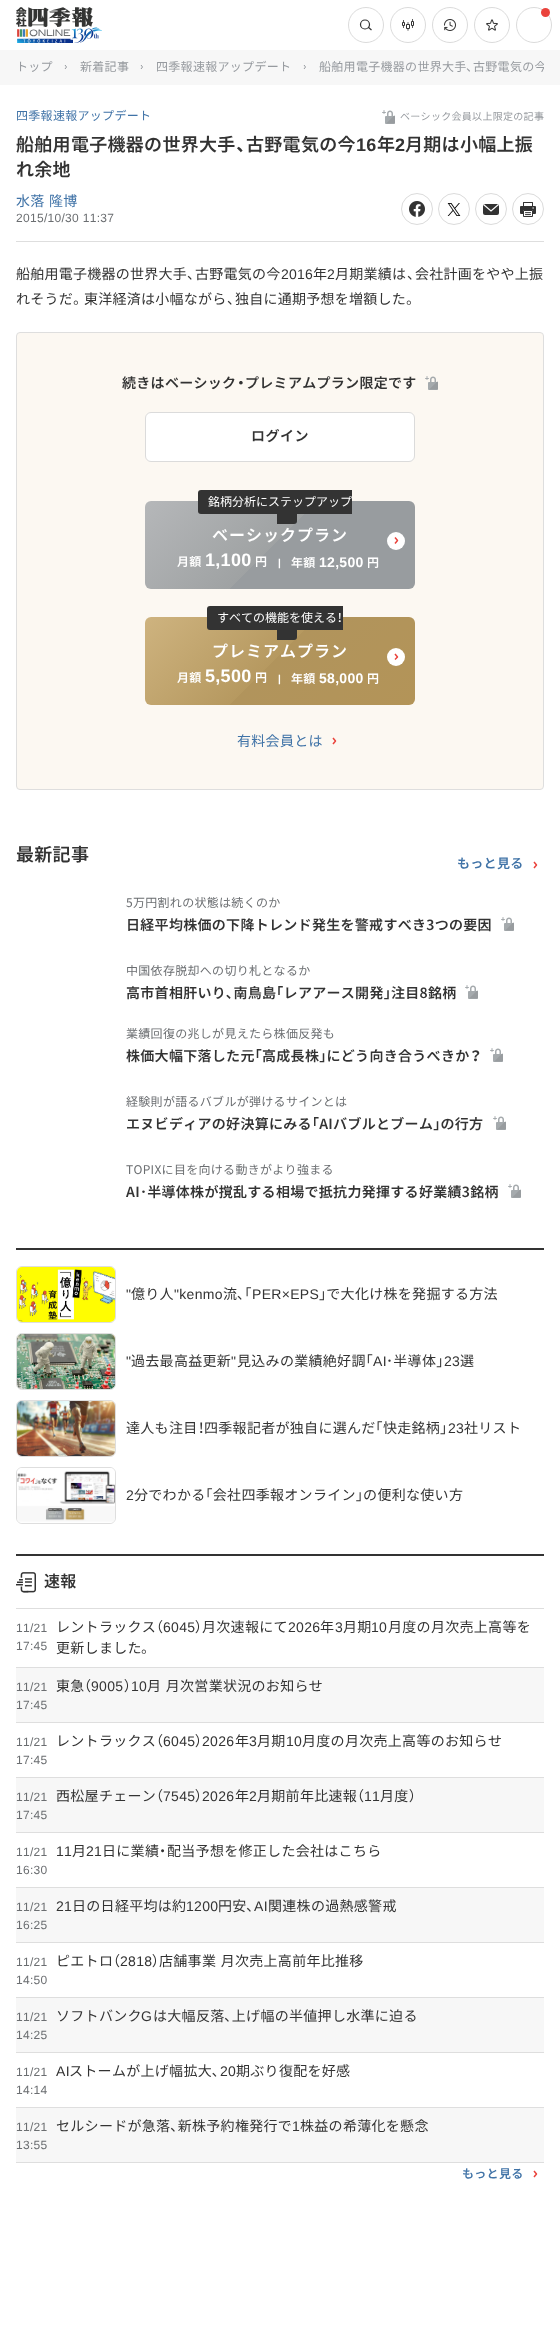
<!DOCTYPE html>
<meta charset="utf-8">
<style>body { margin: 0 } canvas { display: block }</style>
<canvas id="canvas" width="560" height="2327"></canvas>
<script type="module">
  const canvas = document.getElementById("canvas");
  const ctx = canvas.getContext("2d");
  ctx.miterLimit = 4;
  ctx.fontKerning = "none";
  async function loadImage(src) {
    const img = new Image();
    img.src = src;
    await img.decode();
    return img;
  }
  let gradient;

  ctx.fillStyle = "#ffffff";
  ctx.fillRect(0, 0, 560, 2327);
  ctx.drawImage(await loadImage("img1.png"), 16, 7, 86, 36);
  ctx.beginPath();
  ctx.arc(366, 25, 17.5, 0, Math.PI * 2);
  ctx.strokeStyle = "#dbdbdb";
  ctx.stroke();
  ctx.beginPath();
  ctx.arc(365, 24.5, 4.5, 0, Math.PI * 2);
  ctx.strokeStyle = "#333333";
  ctx.lineWidth = 1.2;
  ctx.stroke();
  ctx.beginPath();
  ctx.moveTo(368, 27);
  ctx.lineTo(371.5, 30);
  ctx.stroke();
  ctx.beginPath();
  ctx.arc(408, 25, 17.5, 0, Math.PI * 2);
  ctx.strokeStyle = "#dbdbdb";
  ctx.lineWidth = 1;
  ctx.stroke();
  ctx.drawImage(await loadImage("img2.png"), 402, 19, 12, 12);
  ctx.beginPath();
  ctx.arc(450, 25, 17.5, 0, Math.PI * 2);
  ctx.stroke();
  ctx.drawImage(await loadImage("img3.png"), 444, 19, 12, 12);
  ctx.beginPath();
  ctx.arc(492, 25, 17.5, 0, Math.PI * 2);
  ctx.stroke();
  ctx.drawImage(await loadImage("img4.png"), 486, 19, 12, 12);
  ctx.beginPath();
  ctx.arc(534, 25, 17.5, 0, Math.PI * 2);
  ctx.stroke();
  ctx.fillStyle = "#ea433c";
  ctx.beginPath();
  ctx.arc(545.5, 12.5, 4.5, 0, Math.PI * 2);
  ctx.fill();
  ctx.fillStyle = "#f7f7f7";
  ctx.fillRect(0, 50, 560, 35);
  ctx.letterSpacing = "0.3px";
  ctx.font = "12px Noto Sans JP";
  ctx.fillStyle = "#969a9f";
  ctx.fillText("トップ", 16, 71);
  ctx.beginPath();
  ctx.moveTo(65, 65);
  ctx.lineTo(66.5, 67);
  ctx.lineTo(65, 69);
  ctx.strokeStyle = "#969a9f";
  ctx.stroke();
  ctx.fillText("新着記事", 80, 71);
  ctx.beginPath();
  ctx.moveTo(141, 65);
  ctx.lineTo(142.5, 67);
  ctx.lineTo(141, 69);
  ctx.stroke();
  ctx.fillText("四季報速報アップデート", 156, 71);
  ctx.beginPath();
  ctx.moveTo(304, 65);
  ctx.lineTo(305.5, 67);
  ctx.lineTo(304, 69);
  ctx.stroke();
  ctx.fillText("船舶用電子機器の世界大手", 319, 71);
  ctx.font = "12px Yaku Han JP";
  ctx.fillText("、", 466, 71);
  ctx.save();
  ctx.beginPath();
  ctx.rect(16, 61, 528, 14);
  ctx.clip();
  ctx.font = "12px Noto Sans JP";
  ctx.fillText("古野電気の今", 473, 71);
  ctx.restore();
  ctx.fillStyle = "#dedede";
  ctx.fillRect(16, 241, 528, 1);
  ctx.font = "12px Noto Sans JP";
  ctx.fillStyle = "#4073a7";
  ctx.fillText("四季報速報アップデート", 16, 120);
  ctx.drawImage(await loadImage("img5.png"), 382, 110, 13, 14);
  ctx.font = "10px Noto Sans JP";
  ctx.fillStyle = "#969a9f";
  ctx.fillText("ベーシック会員以上限定の記事", 400, 120);
  ctx.font = "600 18px Noto Sans JP";
  ctx.fillStyle = "#333333";
  ctx.fillText("船舶用電子機器の世界大手", 16, 151);
  ctx.font = "bold 18px Yaku Han JP";
  ctx.fillText("、", 236, 151);
  ctx.font = "600 18px Noto Sans JP";
  ctx.fillText("古野電気の今", 246, 151);
  ctx.font = "bold 18px Liberation Sans";
  ctx.fillText("16", 356, 151);
  ctx.font = "600 18px Noto Sans JP";
  ctx.fillText("年", 377, 151);
  ctx.font = "bold 18px Liberation Sans";
  ctx.fillText("2", 395, 151);
  ctx.font = "600 18px Noto Sans JP";
  ctx.fillText("月期は小幅上振", 405, 151);
  ctx.fillText("れ余地", 16, 176);
  ctx.wordSpacing = "1px";
  ctx.font = "14px Noto Sans JP";
  ctx.fillStyle = "#4073a7";
  ctx.fillText("水落 隆博", 16, 206);
  ctx.wordSpacing = "0px";
  ctx.font = "12px Liberation Sans";
  ctx.fillStyle = "#6b6e71";
  ctx.fillText("2015/10/30 11:37", 16, 222);
  ctx.beginPath();
  ctx.arc(417, 209, 15.5, 0, Math.PI * 2);
  ctx.strokeStyle = "#dbdbdb";
  ctx.stroke();
  ctx.drawImage(await loadImage("img6.png"), 409, 201, 16, 16);
  ctx.beginPath();
  ctx.arc(454, 209, 15.5, 0, Math.PI * 2);
  ctx.stroke();
  ctx.drawImage(await loadImage("img7.png"), 447, 203, 14, 13);
  ctx.beginPath();
  ctx.arc(491, 209, 15.5, 0, Math.PI * 2);
  ctx.stroke();
  ctx.fillStyle = "#333333";
  ctx.beginPath();
  ctx.roundRect(483, 204, 16, 11, 2);
  ctx.fill();
  ctx.beginPath();
  ctx.moveTo(483.5, 204.5);
  ctx.lineTo(491, 211);
  ctx.lineTo(498.5, 204.5);
  ctx.strokeStyle = "#ffffff";
  ctx.lineWidth = 1.1;
  ctx.stroke();
  ctx.beginPath();
  ctx.arc(528, 209, 15.5, 0, Math.PI * 2);
  ctx.strokeStyle = "#dbdbdb";
  ctx.lineWidth = 1;
  ctx.stroke();
  ctx.drawImage(await loadImage("img8.png"), 520, 202, 16, 15);
  ctx.letterSpacing = "0.25px";
  ctx.font = "14px Noto Sans JP";
  ctx.fillText("船舶用電子機器の世界大手", 16, 279);
  ctx.font = "14px Yaku Han JP";
  ctx.fillText("、", 187, 279);
  ctx.font = "14px Noto Sans JP";
  ctx.fillText("古野電気の今", 195, 279);
  ctx.font = "14px Liberation Sans";
  ctx.fillText("2016", 281, 279);
  ctx.font = "14px Noto Sans JP";
  ctx.fillText("年", 313, 279);
  ctx.font = "14px Liberation Sans";
  ctx.fillText("2", 327, 279);
  ctx.font = "14px Noto Sans JP";
  ctx.fillText("月期業績は", 335, 279);
  ctx.font = "14px Yaku Han JP";
  ctx.fillText("、", 407, 279);
  ctx.font = "14px Noto Sans JP";
  ctx.fillText("会社計画をやや上振", 415, 279);
  ctx.fillText("れそうだ", 16, 304);
  ctx.font = "14px Yaku Han JP";
  ctx.fillText("。", 73, 304);
  ctx.font = "14px Noto Sans JP";
  ctx.fillText("東洋経済は小幅ながら", 84, 304);
  ctx.font = "14px Yaku Han JP";
  ctx.fillText("、", 227, 304);
  ctx.font = "14px Noto Sans JP";
  ctx.fillText("独自に通期予想を増額した", 235, 304);
  ctx.font = "14px Yaku Han JP";
  ctx.fillText("。", 406, 304);
  ctx.fillStyle = "#fcf8f2";
  ctx.beginPath();
  ctx.roundRect(16.5, 332.5, 527, 457, 3.5);
  ctx.fill();
  ctx.strokeStyle = "#dedede";
  ctx.stroke();
  ctx.letterSpacing = "0.3px";
  ctx.font = "600 14px Noto Sans JP";
  ctx.fillStyle = "#333333";
  ctx.fillText("続きはベーシック", 122, 388);
  ctx.font = "bold 14px Yaku Han JP";
  ctx.fillText("・", 237, 388);
  ctx.font = "600 14px Noto Sans JP";
  ctx.fillText("プレミアムプラン限定です", 245, 388);
  ctx.drawImage(await loadImage("img9.png"), 425, 376, 13, 14);
  ctx.fillStyle = "#ffffff";
  ctx.beginPath();
  ctx.roundRect(145.5, 412.5, 269, 49, 5.5);
  ctx.fill();
  ctx.strokeStyle = "#dbdbdb";
  ctx.stroke();
  ctx.letterSpacing = "0.5px";
  ctx.fillStyle = "#333333";
  ctx.fillText("ログイン", 251, 441);
  gradient = ctx.createLinearGradient(191, 456, 370, 635);
  gradient.addColorStop(0, "#b5b7b9");
  gradient.addColorStop(0.48, "#9fa2a3");
  gradient.addColorStop(0.48, "#989c9f");
  gradient.addColorStop(1, "#989c9f");
  ctx.fillStyle = gradient;
  ctx.beginPath();
  ctx.roundRect(145, 501, 270, 88, 6);
  ctx.fill();
  ctx.fillStyle = "#333333";
  ctx.beginPath();
  ctx.roundRect(198, 490, 154, 24, [3, 0, 0, 3]);
  ctx.fill();
  ctx.letterSpacing = "0px";
  ctx.font = "12px Noto Sans JP";
  ctx.fillStyle = "#ffffff";
  ctx.fillText("銘柄分析にステップアップ", 208, 506);
  ctx.fillStyle = "#333333";
  ctx.beginPath();
  ctx.roundRect(277, 508, 20, 16, [0, 3, 3, 0]);
  ctx.fill();
  ctx.letterSpacing = "1px";
  ctx.font = "600 16px Noto Sans JP";
  ctx.fillStyle = "#ffffff";
  ctx.fillText("ベーシックプラン", 212, 541);
  ctx.beginPath();
  ctx.arc(396, 541, 9, 0, Math.PI * 2);
  ctx.fill();
  ctx.beginPath();
  ctx.moveTo(395, 537.5);
  ctx.lineTo(397.5, 540.5);
  ctx.lineTo(395, 543.5);
  ctx.strokeStyle = "#ea433c";
  ctx.lineWidth = 1.5;
  ctx.lineJoin = "round";
  ctx.stroke();
  ctx.letterSpacing = "0.3px";
  ctx.font = "600 12px Noto Sans JP";
  ctx.fillText("月額", 177, 566);
  ctx.font = "bold 18px Liberation Sans";
  ctx.fillText("1,100", 205, 566);
  ctx.font = "600 12px Noto Sans JP";
  ctx.fillText("円", 255, 566);
  ctx.font = "bold 10px Liberation Sans";
  ctx.fillText("|", 278, 566);
  ctx.font = "600 12px Noto Sans JP";
  ctx.fillText("年額", 291, 567);
  ctx.font = "bold 14px Liberation Sans";
  ctx.fillText("12,500", 319, 567);
  ctx.font = "600 12px Noto Sans JP";
  ctx.fillText("円", 367, 567);
  gradient = ctx.createLinearGradient(191, 572, 370, 751);
  gradient.addColorStop(0, "#ceb37f");
  gradient.addColorStop(0.48, "#b69960");
  gradient.addColorStop(0.48, "#b1945c");
  gradient.addColorStop(1, "#b39458");
  ctx.fillStyle = gradient;
  ctx.beginPath();
  ctx.roundRect(145, 617, 270, 88, 6);
  ctx.fill();
  ctx.fillStyle = "#333333";
  ctx.beginPath();
  ctx.roundRect(207, 606, 136, 24, [3, 0, 0, 3]);
  ctx.fill();
  ctx.letterSpacing = "0px";
  ctx.font = "12px Noto Sans JP";
  ctx.fillStyle = "#ffffff";
  ctx.fillText("すべての機能を使える", 217, 622);
  ctx.fillStyle = "#333333";
  ctx.beginPath();
  ctx.roundRect(277, 624, 20, 16, [0, 3, 3, 0]);
  ctx.fill();
  ctx.font = "12px Yaku Han JP";
  ctx.fillStyle = "#ffffff";
  ctx.fillText("！", 337, 622);
  ctx.letterSpacing = "1px";
  ctx.font = "600 16px Noto Sans JP";
  ctx.fillText("プレミアムプラン", 212, 657);
  ctx.beginPath();
  ctx.arc(396, 657, 9, 0, Math.PI * 2);
  ctx.fill();
  ctx.beginPath();
  ctx.moveTo(395, 654);
  ctx.lineTo(397.5, 657);
  ctx.lineTo(395, 659.5);
  ctx.stroke();
  ctx.letterSpacing = "0.3px";
  ctx.font = "600 12px Noto Sans JP";
  ctx.fillText("月額", 177, 682);
  ctx.font = "bold 18px Liberation Sans";
  ctx.fillText("5,500", 205, 682);
  ctx.font = "600 12px Noto Sans JP";
  ctx.fillText("円", 255, 682);
  ctx.font = "bold 10px Liberation Sans";
  ctx.fillText("|", 278, 682);
  ctx.font = "600 12px Noto Sans JP";
  ctx.fillText("年額", 291, 683);
  ctx.font = "bold 14px Liberation Sans";
  ctx.fillText("58,000", 319, 683);
  ctx.font = "600 12px Noto Sans JP";
  ctx.fillText("円", 367, 683);
  ctx.font = "14px Noto Sans JP";
  ctx.fillStyle = "#4073a7";
  ctx.fillText("有料会員とは", 237, 746);
  ctx.beginPath();
  ctx.moveTo(333, 738);
  ctx.lineTo(335.5, 741);
  ctx.lineTo(333, 744);
  ctx.stroke();
  ctx.font = "600 18px Noto Sans JP";
  ctx.fillStyle = "#333333";
  ctx.fillText("最新記事", 16, 861);
  ctx.font = "600 13px Noto Sans JP";
  ctx.fillStyle = "#4073a7";
  ctx.fillText("もっと見る", 457, 868);
  ctx.beginPath();
  ctx.moveTo(534, 862);
  ctx.lineTo(536.5, 865);
  ctx.lineTo(534, 868);
  ctx.stroke();
  ctx.font = "12px Noto Sans JP";
  ctx.fillStyle = "#6b6e71";
  ctx.fillText("5万円割れの状態は続くのか", 126, 907);
  ctx.font = "600 14px Noto Sans JP";
  ctx.fillStyle = "#333333";
  ctx.fillText("日経平均株価の下降トレンド発生を警戒すべき3つの要因", 126, 930);
  ctx.drawImage(await loadImage("img10.png"), 501, 917, 13, 14);
  ctx.font = "12px Noto Sans JP";
  ctx.fillStyle = "#6b6e71";
  ctx.fillText("中国依存脱却への切り札となるか", 126, 975);
  ctx.font = "600 14px Noto Sans JP";
  ctx.fillStyle = "#333333";
  ctx.fillText("高市首相肝いり､南鳥島｢レアアース開発｣注目8銘柄", 126, 998);
  ctx.drawImage(await loadImage("img10.png"), 465, 985, 13, 14);
  ctx.font = "12px Noto Sans JP";
  ctx.fillStyle = "#6b6e71";
  ctx.fillText("業績回復の兆しが見えたら株価反発も", 126, 1038);
  ctx.font = "600 14px Noto Sans JP";
  ctx.fillStyle = "#333333";
  ctx.fillText("株価大幅下落した元｢高成長株｣にどう向き合うべきか", 126, 1061);
  ctx.font = "bold 14px Yaku Han JP";
  ctx.fillText("？", 470, 1061);
  ctx.drawImage(await loadImage("img10.png"), 490, 1048, 13, 14);
  ctx.font = "12px Noto Sans JP";
  ctx.fillStyle = "#6b6e71";
  ctx.fillText("経験則が語るバブルが弾けるサインとは", 126, 1106);
  ctx.font = "600 14px Noto Sans JP";
  ctx.fillStyle = "#333333";
  ctx.fillText("エヌビディアの好決算にみる｢AIバブルとブーム｣の行方", 126, 1129);
  ctx.drawImage(await loadImage("img10.png"), 493, 1116, 13, 14);
  ctx.font = "12px Noto Sans JP";
  ctx.fillStyle = "#6b6e71";
  ctx.fillText("TOPIXに目を向ける動きがより強まる", 126, 1174);
  ctx.font = "600 14px Noto Sans JP";
  ctx.fillStyle = "#333333";
  ctx.fillText("AI･半導体株が撹乱する相場で抵抗力発揮する好業績3銘柄", 126, 1197);
  ctx.drawImage(await loadImage("img10.png"), 508, 1184, 13, 14);
  ctx.fillRect(16, 1248, 528, 2);
  ctx.beginPath();
  ctx.roundRect(16.5, 1266.5, 99, 56, 5.5);
  ctx.strokeStyle = "#dedede";
  ctx.lineWidth = 1;
  ctx.lineJoin = "miter";
  ctx.stroke();
  ctx.drawImage(await loadImage("img11.png"), 17, 1267, 98, 55);
  ctx.font = "14px Liberation Sans";
  ctx.fillText("\"", 126, 1299);
  ctx.font = "14px Noto Sans JP";
  ctx.fillText("億り人", 131, 1299);
  ctx.font = "14px Liberation Sans";
  ctx.fillText("\"kenmo", 174, 1299);
  ctx.font = "14px Noto Sans JP";
  ctx.fillText("流､｢", 223, 1299);
  ctx.font = "14px Liberation Sans";
  ctx.fillText("PER×EPS", 252, 1299);
  ctx.font = "14px Noto Sans JP";
  ctx.fillText("｣で大化け株を発掘する方法", 319, 1299);
  ctx.beginPath();
  ctx.roundRect(16.5, 1333.5, 99, 56, 5.5);
  ctx.stroke();
  ctx.drawImage(await loadImage("img12.png"), 17, 1334, 98, 55);
  ctx.font = "14px Liberation Sans";
  ctx.fillText("\"", 126, 1366);
  ctx.font = "14px Noto Sans JP";
  ctx.fillText("過去最高益更新", 131, 1366);
  ctx.font = "14px Liberation Sans";
  ctx.fillText("\"", 231, 1366);
  ctx.font = "14px Noto Sans JP";
  ctx.fillText("見込みの業績絶好調｢", 237, 1366);
  ctx.font = "14px Liberation Sans";
  ctx.fillText("AI", 373, 1366);
  ctx.font = "14px Noto Sans JP";
  ctx.fillText("･半導体｣", 386, 1366);
  ctx.font = "14px Liberation Sans";
  ctx.fillText("23", 444, 1366);
  ctx.font = "14px Noto Sans JP";
  ctx.fillText("選", 460, 1366);
  ctx.beginPath();
  ctx.roundRect(16.5, 1400.5, 99, 56, 5.5);
  ctx.stroke();
  ctx.drawImage(await loadImage("img13.png"), 17, 1401, 98, 55);
  ctx.fillText("達人も注目", 126, 1433);
  ctx.font = "14px Yaku Han JP";
  ctx.fillText("！", 198, 1433);
  ctx.font = "14px Noto Sans JP";
  ctx.fillText("四季報記者が独自に選んだ｢快走銘柄｣", 204, 1433);
  ctx.font = "14px Liberation Sans";
  ctx.fillText("23", 448, 1433);
  ctx.font = "14px Noto Sans JP";
  ctx.fillText("社リスト", 464, 1433);
  ctx.beginPath();
  ctx.roundRect(16.5, 1467.5, 99, 56, 5.5);
  ctx.stroke();
  ctx.drawImage(await loadImage("img14.png"), 17, 1468, 98, 55);
  ctx.font = "14px Liberation Sans";
  ctx.fillText("2", 126, 1500);
  ctx.font = "14px Noto Sans JP";
  ctx.fillText("分でわかる｢会社四季報オンライン｣の便利な使い方", 134, 1500);
  ctx.fillRect(16, 1554, 528, 2);
  ctx.drawImage(await loadImage("img15.png"), 16, 1572, 20, 21);
  ctx.font = "600 16px Noto Sans JP";
  ctx.fillText("速報", 44, 1587);
  ctx.fillStyle = "#dedede";
  ctx.fillRect(16, 1608, 528, 1);
  ctx.fillRect(16, 1667, 528, 1);
  ctx.font = "12px Liberation Sans";
  ctx.fillStyle = "#6b6e71";
  ctx.fillText("11/21", 16, 1632);
  ctx.fillText("17:45", 16, 1650);
  ctx.font = "14px Noto Sans JP";
  ctx.fillStyle = "#333333";
  ctx.fillText("レントラックス", 56, 1632);
  ctx.font = "14px Yaku Han JP";
  ctx.fillText("（", 156, 1632);
  ctx.font = "14px Liberation Sans";
  ctx.fillText("6045", 163, 1632);
  ctx.font = "14px Yaku Han JP";
  ctx.fillText("）", 195, 1632);
  ctx.font = "14px Noto Sans JP";
  ctx.fillText("月次速報にて", 202, 1632);
  ctx.font = "14px Liberation Sans";
  ctx.fillText("2026", 288, 1632);
  ctx.font = "14px Noto Sans JP";
  ctx.fillText("年", 320, 1632);
  ctx.font = "14px Liberation Sans";
  ctx.fillText("3", 335, 1632);
  ctx.font = "14px Noto Sans JP";
  ctx.fillText("月期", 343, 1632);
  ctx.font = "14px Liberation Sans";
  ctx.fillText("10", 371, 1632);
  ctx.font = "14px Noto Sans JP";
  ctx.fillText("月度の月次売上高等を", 388, 1632);
  ctx.fillText("更新しました", 56, 1653);
  ctx.font = "14px Yaku Han JP";
  ctx.fillText("。", 141, 1653);
  ctx.fillStyle = "#f7f7f7";
  ctx.fillRect(16, 1668, 528, 54);
  ctx.fillStyle = "#dedede";
  ctx.fillRect(16, 1722, 528, 1);
  ctx.font = "12px Liberation Sans";
  ctx.fillStyle = "#6b6e71";
  ctx.fillText("11/21", 16, 1691);
  ctx.fillText("17:45", 16, 1709);
  ctx.font = "14px Noto Sans JP";
  ctx.fillStyle = "#333333";
  ctx.fillText("東急", 56, 1691);
  ctx.font = "14px Yaku Han JP";
  ctx.fillText("（", 84, 1691);
  ctx.font = "14px Liberation Sans";
  ctx.fillText("9005", 91, 1691);
  ctx.font = "14px Yaku Han JP";
  ctx.fillText("）", 124, 1691);
  ctx.font = "14px Liberation Sans";
  ctx.fillText("10", 131, 1691);
  ctx.wordSpacing = "1px";
  ctx.font = "14px Noto Sans JP";
  ctx.fillText("月 月次営業状況のお知らせ", 147, 1691);
  ctx.fillStyle = "#dedede";
  ctx.fillRect(16, 1777, 528, 1);
  ctx.wordSpacing = "0px";
  ctx.font = "12px Liberation Sans";
  ctx.fillStyle = "#6b6e71";
  ctx.fillText("11/21", 16, 1746);
  ctx.fillText("17:45", 16, 1764);
  ctx.font = "14px Noto Sans JP";
  ctx.fillStyle = "#333333";
  ctx.fillText("レントラックス", 56, 1746);
  ctx.font = "14px Yaku Han JP";
  ctx.fillText("（", 156, 1746);
  ctx.font = "14px Liberation Sans";
  ctx.fillText("6045", 163, 1746);
  ctx.font = "14px Yaku Han JP";
  ctx.fillText("）", 195, 1746);
  ctx.font = "14px Liberation Sans";
  ctx.fillText("2026", 202, 1746);
  ctx.font = "14px Noto Sans JP";
  ctx.fillText("年", 235, 1746);
  ctx.font = "14px Liberation Sans";
  ctx.fillText("3", 249, 1746);
  ctx.font = "14px Noto Sans JP";
  ctx.fillText("月期", 257, 1746);
  ctx.font = "14px Liberation Sans";
  ctx.fillText("10", 286, 1746);
  ctx.font = "14px Noto Sans JP";
  ctx.fillText("月度の月次売上高等のお知らせ", 302, 1746);
  ctx.fillStyle = "#f7f7f7";
  ctx.fillRect(16, 1778, 528, 54);
  ctx.fillStyle = "#dedede";
  ctx.fillRect(16, 1832, 528, 1);
  ctx.font = "12px Liberation Sans";
  ctx.fillStyle = "#6b6e71";
  ctx.fillText("11/21", 16, 1801);
  ctx.fillText("17:45", 16, 1819);
  ctx.font = "14px Noto Sans JP";
  ctx.fillStyle = "#333333";
  ctx.fillText("西松屋チェーン", 56, 1801);
  ctx.font = "14px Yaku Han JP";
  ctx.fillText("（", 156, 1801);
  ctx.font = "14px Liberation Sans";
  ctx.fillText("7545", 163, 1801);
  ctx.font = "14px Yaku Han JP";
  ctx.fillText("）", 195, 1801);
  ctx.font = "14px Liberation Sans";
  ctx.fillText("2026", 202, 1801);
  ctx.font = "14px Noto Sans JP";
  ctx.fillText("年", 235, 1801);
  ctx.font = "14px Liberation Sans";
  ctx.fillText("2", 249, 1801);
  ctx.font = "14px Noto Sans JP";
  ctx.fillText("月期前年比速報", 257, 1801);
  ctx.font = "14px Yaku Han JP";
  ctx.fillText("（", 357, 1801);
  ctx.font = "14px Liberation Sans";
  ctx.fillText("11", 364, 1801);
  ctx.font = "14px Noto Sans JP";
  ctx.fillText("月度", 380, 1801);
  ctx.font = "14px Yaku Han JP";
  ctx.fillText("）", 409, 1801);
  ctx.fillStyle = "#dedede";
  ctx.fillRect(16, 1887, 528, 1);
  ctx.font = "12px Liberation Sans";
  ctx.fillStyle = "#6b6e71";
  ctx.fillText("11/21", 16, 1856);
  ctx.fillText("16:30", 16, 1874);
  ctx.font = "14px Liberation Sans";
  ctx.fillStyle = "#333333";
  ctx.fillText("11", 56, 1856);
  ctx.font = "14px Noto Sans JP";
  ctx.fillText("月", 72, 1856);
  ctx.font = "14px Liberation Sans";
  ctx.fillText("21", 86, 1856);
  ctx.font = "14px Noto Sans JP";
  ctx.fillText("日に業績", 102, 1856);
  ctx.font = "14px Yaku Han JP";
  ctx.fillText("・", 159, 1856);
  ctx.font = "14px Noto Sans JP";
  ctx.fillText("配当予想を修正した会社はこちら", 167, 1856);
  ctx.fillStyle = "#f7f7f7";
  ctx.fillRect(16, 1888, 528, 54);
  ctx.fillStyle = "#dedede";
  ctx.fillRect(16, 1942, 528, 1);
  ctx.font = "12px Liberation Sans";
  ctx.fillStyle = "#6b6e71";
  ctx.fillText("11/21", 16, 1911);
  ctx.fillText("16:25", 16, 1929);
  ctx.font = "14px Liberation Sans";
  ctx.fillStyle = "#333333";
  ctx.fillText("21", 56, 1911);
  ctx.font = "14px Noto Sans JP";
  ctx.fillText("日の日経平均は約", 72, 1911);
  ctx.font = "14px Liberation Sans";
  ctx.fillText("1200", 186, 1911);
  ctx.font = "14px Noto Sans JP";
  ctx.fillText("円安､", 218, 1911);
  ctx.font = "14px Liberation Sans";
  ctx.fillText("AI", 254, 1911);
  ctx.font = "14px Noto Sans JP";
  ctx.fillText("関連株の過熱感警戒", 268, 1911);
  ctx.fillStyle = "#dedede";
  ctx.fillRect(16, 1997, 528, 1);
  ctx.font = "12px Liberation Sans";
  ctx.fillStyle = "#6b6e71";
  ctx.fillText("11/21", 16, 1966);
  ctx.fillText("14:50", 16, 1984);
  ctx.font = "14px Noto Sans JP";
  ctx.fillStyle = "#333333";
  ctx.fillText("ピエトロ", 56, 1966);
  ctx.font = "14px Yaku Han JP";
  ctx.fillText("（", 113, 1966);
  ctx.font = "14px Liberation Sans";
  ctx.fillText("2818", 120, 1966);
  ctx.font = "14px Yaku Han JP";
  ctx.fillText("）", 152, 1966);
  ctx.wordSpacing = "1px";
  ctx.font = "14px Noto Sans JP";
  ctx.fillText("店舗事業 月次売上高前年比推移", 159, 1966);
  ctx.fillStyle = "#f7f7f7";
  ctx.fillRect(16, 1998, 528, 54);
  ctx.fillStyle = "#dedede";
  ctx.fillRect(16, 2052, 528, 1);
  ctx.wordSpacing = "0px";
  ctx.font = "12px Liberation Sans";
  ctx.fillStyle = "#6b6e71";
  ctx.fillText("11/21", 16, 2021);
  ctx.fillText("14:25", 16, 2039);
  ctx.font = "14px Noto Sans JP";
  ctx.fillStyle = "#333333";
  ctx.fillText("ソフトバンク", 56, 2021);
  ctx.font = "14px Liberation Sans";
  ctx.fillText("G", 141, 2021);
  ctx.font = "14px Noto Sans JP";
  ctx.fillText("は大幅反落､上げ幅の半値押し水準に迫る", 153, 2021);
  ctx.fillStyle = "#dedede";
  ctx.fillRect(16, 2107, 528, 1);
  ctx.font = "12px Liberation Sans";
  ctx.fillStyle = "#6b6e71";
  ctx.fillText("11/21", 16, 2076);
  ctx.fillText("14:14", 16, 2094);
  ctx.font = "14px Liberation Sans";
  ctx.fillStyle = "#333333";
  ctx.fillText("AI", 56, 2076);
  ctx.font = "14px Noto Sans JP";
  ctx.fillText("ストームが上げ幅拡大､", 69, 2076);
  ctx.font = "14px Liberation Sans";
  ctx.fillText("20", 220, 2076);
  ctx.font = "14px Noto Sans JP";
  ctx.fillText("期ぶり復配を好感", 236, 2076);
  ctx.fillStyle = "#f7f7f7";
  ctx.fillRect(16, 2108, 528, 54);
  ctx.fillStyle = "#dedede";
  ctx.fillRect(16, 2162, 528, 1);
  ctx.font = "12px Liberation Sans";
  ctx.fillStyle = "#6b6e71";
  ctx.fillText("11/21", 16, 2131);
  ctx.fillText("13:55", 16, 2149);
  ctx.font = "14px Noto Sans JP";
  ctx.fillStyle = "#333333";
  ctx.fillText("セルシードが急落､新株予約権発行で", 56, 2131);
  ctx.font = "14px Liberation Sans";
  ctx.fillText("1", 292, 2131);
  ctx.font = "14px Noto Sans JP";
  ctx.fillText("株益の希薄化を懸念", 300, 2131);
  ctx.font = "600 12px Noto Sans JP";
  ctx.fillStyle = "#4073a7";
  ctx.fillText("もっと見る", 462, 2178);
  ctx.beginPath();
  ctx.moveTo(534, 2171);
  ctx.lineTo(536.5, 2174);
  ctx.lineTo(534, 2177);
  ctx.strokeStyle = "#ea433c";
  ctx.lineWidth = 1.5;
  ctx.lineJoin = "round";
  ctx.stroke();
</script>
